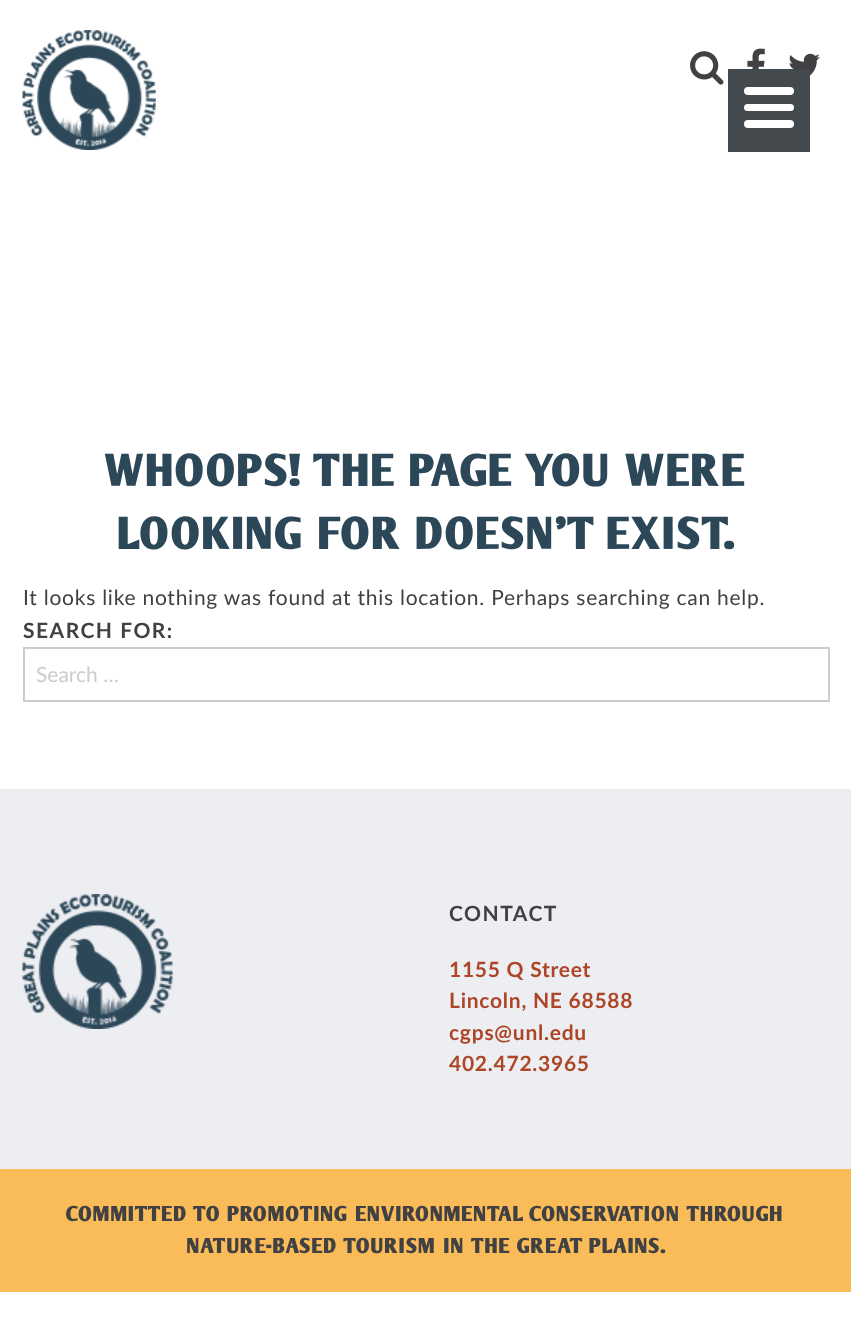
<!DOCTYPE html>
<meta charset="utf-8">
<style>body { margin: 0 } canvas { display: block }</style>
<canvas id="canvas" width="851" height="1324"></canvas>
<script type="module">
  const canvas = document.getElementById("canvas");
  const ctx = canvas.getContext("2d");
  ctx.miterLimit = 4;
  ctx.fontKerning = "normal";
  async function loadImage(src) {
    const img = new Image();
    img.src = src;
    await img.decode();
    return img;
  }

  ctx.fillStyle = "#ffffff";
  ctx.fillRect(0, 0, 851, 1324);
  ctx.drawImage(await loadImage("img1.png"), 22, 30, 134, 120);
  ctx.drawImage(await loadImage("img2.png"), 690, 51, 34, 34);
  ctx.drawImage(await loadImage("img3.png"), 747, 48, 18, 21);
  ctx.drawImage(await loadImage("img4.png"), 789, 53, 31, 23);
  ctx.fillStyle = "#43494c";
  ctx.fillRect(728, 69, 82, 83);
  ctx.fillStyle = "#ffffff";
  ctx.beginPath();
  ctx.roundRect(744, 104, 50, 7, 3.5);
  ctx.fill();
  ctx.beginPath();
  ctx.roundRect(744, 87, 50, 8, 4);
  ctx.fill();
  ctx.beginPath();
  ctx.roundRect(744, 120, 50, 8, 4);
  ctx.fill();
  ctx.letterSpacing = "0.75px";
  ctx.font = "bold 45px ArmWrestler";
  ctx.fillStyle = "#2c4758";
  ctx.fillText("WHOOPS! THE PAGE YOU WERE", 104, 486);
  ctx.fillText("LOOKING FOR DOESN'T EXIST.", 117, 549);
  ctx.font = "21px Lato";
  ctx.fillStyle = "#414042";
  ctx.fillText("It looks like nothing was found at this location. Perhaps searching can help.", 23, 605);
  ctx.letterSpacing = "1.5px";
  ctx.font = "bold 21px Lato";
  ctx.fillText("SEARCH FOR:", 23, 638);
  ctx.strokeStyle = "#cccccc";
  ctx.lineWidth = 2;
  ctx.strokeRect(24, 648, 805, 53);
  ctx.letterSpacing = "0px";
  ctx.font = "21px Lato";
  ctx.fillStyle = "#cccccc";
  ctx.fillText("Search …", 36, 682);
  ctx.fillStyle = "#edeef2";
  ctx.fillRect(0, 789, 851, 380);
  ctx.drawImage(await loadImage("img5.png"), 22, 894, 151, 135);
  ctx.letterSpacing = "1.5px";
  ctx.font = "bold 21px Lato";
  ctx.fillStyle = "#414042";
  ctx.fillText("CONTACT", 449, 921);
  ctx.letterSpacing = "0.75px";
  ctx.fillStyle = "#ad4526";
  ctx.fillText("1155 Q Street", 449, 977);
  ctx.fillText("Lincoln, NE 68588", 449, 1008);
  ctx.fillText("cgps@unl.edu", 449, 1040);
  ctx.fillText("402.472.3965", 449, 1071);
  ctx.fillStyle = "#fabc59";
  ctx.fillRect(0, 1169, 851, 123);
  ctx.font = "bold 21px ArmWrestler";
  ctx.fillStyle = "#414042";
  ctx.fillText("COMMITTED TO PROMOTING ENVIRONMENTAL CONSERVATION THROUGH", 66, 1221);
  ctx.fillText("NATURE-BASED TOURISM IN THE GREAT PLAINS.", 186, 1253);
</script>
